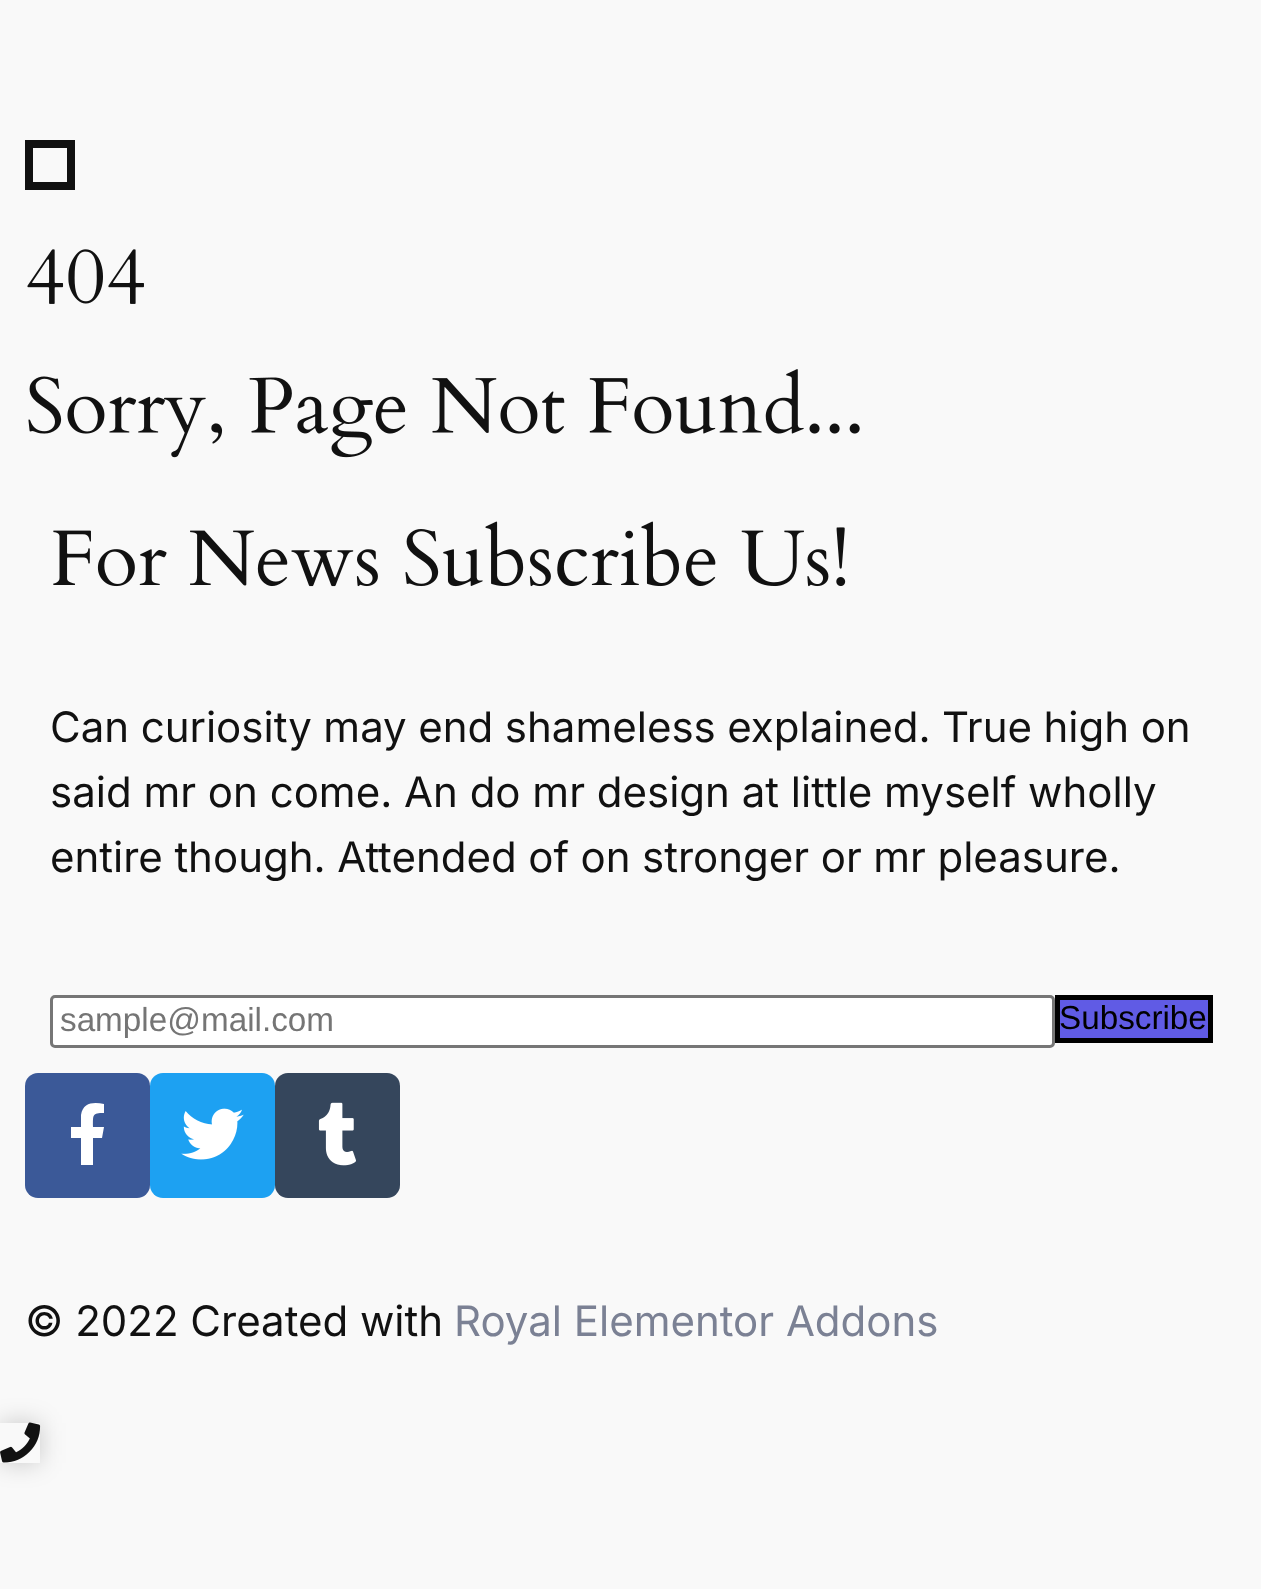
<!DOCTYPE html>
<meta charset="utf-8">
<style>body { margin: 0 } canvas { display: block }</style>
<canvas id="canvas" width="1261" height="1589"></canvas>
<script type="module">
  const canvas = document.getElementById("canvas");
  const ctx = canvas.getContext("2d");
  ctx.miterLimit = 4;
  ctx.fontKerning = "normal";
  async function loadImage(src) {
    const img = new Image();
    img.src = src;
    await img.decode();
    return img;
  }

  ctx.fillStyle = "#f9f9f9";
  ctx.fillRect(0, 0, 1261, 1589);
  ctx.strokeStyle = "#111111";
  ctx.lineWidth = 8;
  ctx.strokeRect(29, 144, 42, 42);
  ctx.drawImage(await loadImage("img1.png"), 27, 249, 117, 55);
  ctx.drawImage(await loadImage("img2.png"), 28, 369, 832, 89);
  ctx.drawImage(await loadImage("img3.png"), 53, 521, 793, 66);
  ctx.wordSpacing = "-0.25px";
  ctx.font = "42px Inter";
  ctx.fillStyle = "#111111";
  ctx.fillText("Can curiosity may end shameless explained. True high on", 50, 742);
  ctx.wordSpacing = "0px";
  ctx.fillText("said mr on come. An do mr design at little myself wholly", 50, 807);
  ctx.wordSpacing = "-0.25px";
  ctx.fillText("entire though. Attended of on stronger or mr pleasure.", 50, 872);
  ctx.fillStyle = "#ffffff";
  ctx.beginPath();
  ctx.roundRect(51.5, 996.5, 1002, 50, 3.5);
  ctx.fill();
  ctx.strokeStyle = "#767676";
  ctx.lineWidth = 3;
  ctx.stroke();
  ctx.wordSpacing = "0px";
  ctx.font = "33.25px Liberation Sans";
  ctx.fillStyle = "#757575";
  ctx.fillText("sample@mail.com", 60, 1031);
  ctx.fillStyle = "#605be5";
  ctx.beginPath();
  ctx.rect(1057.5, 997.5, 153, 43);
  ctx.fill();
  ctx.strokeStyle = "#000000";
  ctx.lineWidth = 5;
  ctx.stroke();
  ctx.fillStyle = "#000000";
  ctx.fillText("Subscribe", 1059, 1029);
  ctx.fillStyle = "#3b5998";
  ctx.beginPath();
  ctx.roundRect(25, 1073, 125, 125, 13);
  ctx.fill();
  ctx.fillStyle = "#ffffff";
  ctx.beginPath();
  ctx.moveTo(102, 1138);
  ctx.lineTo(93, 1138);
  ctx.lineTo(93, 1165);
  ctx.lineTo(81, 1165);
  ctx.lineTo(81, 1138);
  ctx.lineTo(71, 1138);
  ctx.lineTo(71, 1127);
  ctx.lineTo(81, 1127);
  ctx.lineTo(81, 1115);
  ctx.bezierCurveTo(83, 1102, 94, 1102, 104, 1104);
  ctx.lineTo(104, 1113);
  ctx.bezierCurveTo(92, 1113, 93, 1115, 93, 1127);
  ctx.lineTo(104, 1127);
  ctx.closePath();
  ctx.fill();
  ctx.fillStyle = "#1da1f2";
  ctx.beginPath();
  ctx.roundRect(150, 1073, 125, 125, 13);
  ctx.fill();
  ctx.drawImage(await loadImage("img4.png"), 181, 1108, 63, 52);
  ctx.fillStyle = "#35465c";
  ctx.beginPath();
  ctx.roundRect(275, 1073, 125, 125, 13);
  ctx.fill();
  ctx.drawImage(await loadImage("img5.png"), 318, 1102, 38, 64);
  ctx.font = "42px Inter";
  ctx.fillStyle = "#111111";
  ctx.fillText("© 2022 Created with", 25, 1336);
  ctx.fillStyle = "#7b8194";
  ctx.fillText("Royal Elementor Addons", 454, 1336);
  ctx.save();
  ctx.beginPath();
  ctx.moveTo(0, 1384);
  ctx.lineTo(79, 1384);
  ctx.lineTo(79, 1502);
  ctx.lineTo(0, 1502);
  ctx.closePath();
  ctx.moveTo(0, 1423);
  ctx.lineTo(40, 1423);
  ctx.lineTo(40, 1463);
  ctx.lineTo(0, 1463);
  ctx.closePath();
  ctx.clip("evenodd");
  ctx.fillStyle = "rgba(0, 0, 0, 0.2)";
  ctx.filter = "blur(12.5px)";
  ctx.beginPath();
  ctx.rect(0, 1423, 40, 40);
  ctx.fill();
  ctx.filter = "none";
  ctx.restore();
  ctx.drawImage(await loadImage("img6.png"), 0, 1422, 41, 41);
</script>
